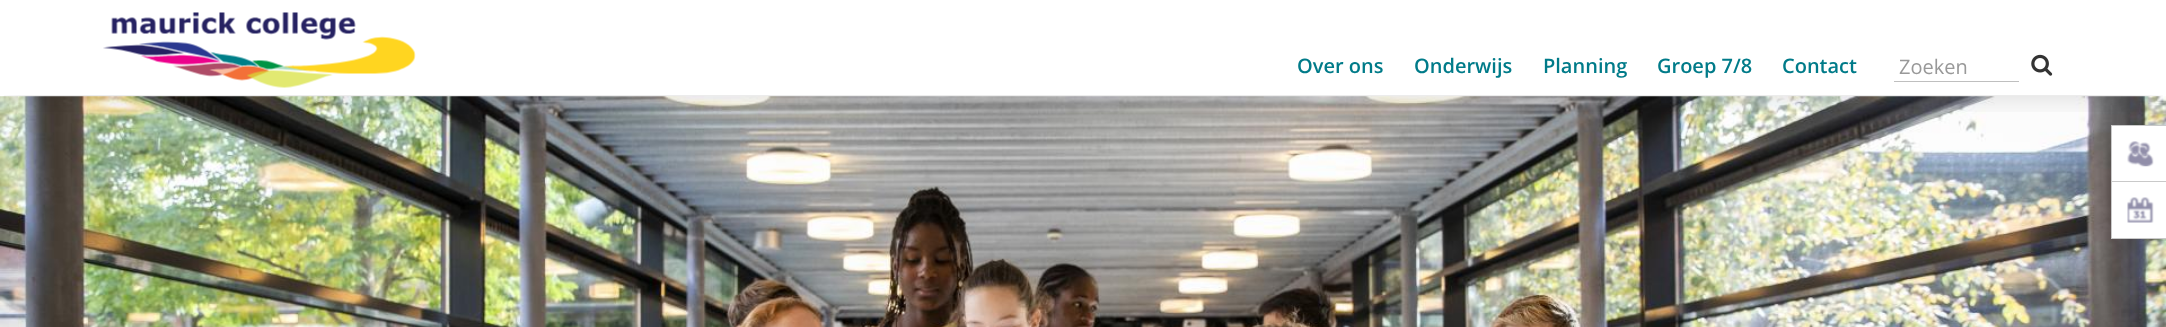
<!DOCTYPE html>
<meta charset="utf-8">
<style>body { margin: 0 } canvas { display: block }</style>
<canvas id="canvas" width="2166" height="327"></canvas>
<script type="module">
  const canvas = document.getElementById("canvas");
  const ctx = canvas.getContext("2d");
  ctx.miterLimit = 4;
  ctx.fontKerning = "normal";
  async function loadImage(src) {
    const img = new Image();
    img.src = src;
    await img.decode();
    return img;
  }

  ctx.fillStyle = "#ffffff";
  ctx.fillRect(0, 0, 2166, 327);
  ctx.drawImage(await loadImage("img3.png"), 0, 96, 2166, 231);
  ctx.fillRect(2112, 126, 54, 55);
  ctx.fillStyle = "#c9c9c9";
  ctx.fillRect(2111, 125, 55, 1);
  ctx.fillRect(2111, 125, 1, 58);
  ctx.drawImage(await loadImage("img4.png"), 2127, 141, 27, 26);
  ctx.save();
  ctx.beginPath();
  ctx.rect(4, 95, 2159, 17);
  ctx.clip();
  ctx.fillStyle = "rgba(0, 0, 0, 0.15)";
  ctx.filter = "blur(15.5px)";
  ctx.beginPath();
  ctx.rect(13, 25, 2141, 70);
  ctx.fill();
  ctx.filter = "none";
  ctx.restore();
  ctx.drawImage(await loadImage("img1.png"), 103, 12, 313, 76);
  ctx.font = "600 20px Open Sans";
  ctx.fillStyle = "#007b89";
  ctx.fillText("Over ons", 1297, 73);
  ctx.fillText("Onderwijs", 1414, 73);
  ctx.fillText("Planning", 1543, 73);
  ctx.fillText("Groep 7/8", 1657, 73);
  ctx.fillText("Contact", 1782, 73);
  ctx.fillStyle = "#bfbfbf";
  ctx.fillRect(1894, 81, 125, 1);
  ctx.font = "20px Open Sans";
  ctx.fillStyle = "#999999";
  ctx.fillText("Zoeken", 1899, 74);
  ctx.drawImage(await loadImage("img2.png"), 2031, 54, 22, 22);
  ctx.fillStyle = "#ffffff";
  ctx.fillRect(2112, 182, 54, 56);
  ctx.fillStyle = "#c9c9c9";
  ctx.fillRect(2111, 181, 55, 1);
  ctx.fillRect(2111, 238, 55, 1);
  ctx.fillRect(2111, 181, 1, 58);
  ctx.drawImage(await loadImage("img5.png"), 2127, 197, 27, 26);
</script>
